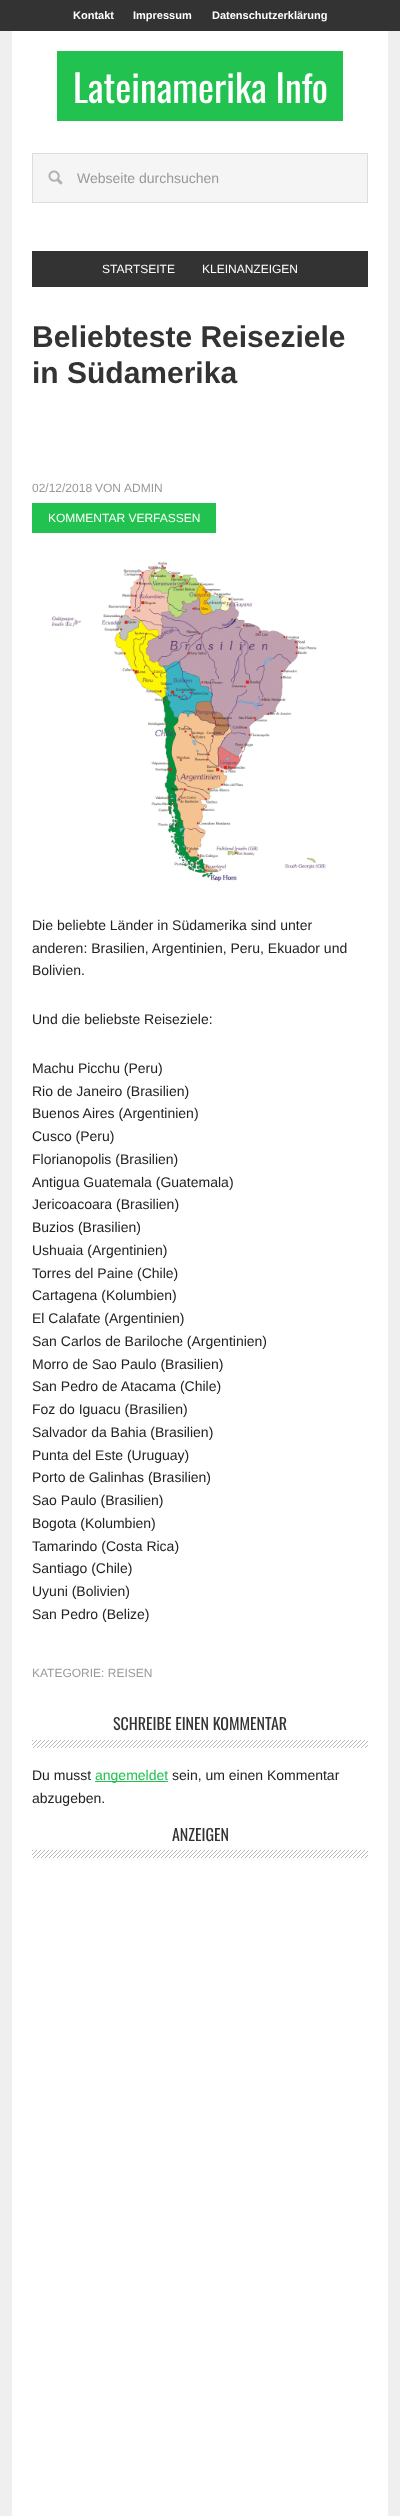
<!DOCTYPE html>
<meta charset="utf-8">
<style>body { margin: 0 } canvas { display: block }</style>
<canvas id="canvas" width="400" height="2516"></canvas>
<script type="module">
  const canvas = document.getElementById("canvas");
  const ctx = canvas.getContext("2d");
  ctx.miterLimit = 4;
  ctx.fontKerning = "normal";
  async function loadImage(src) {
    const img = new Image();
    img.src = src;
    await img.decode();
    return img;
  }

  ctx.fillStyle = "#efefef";
  ctx.fillRect(0, 0, 400, 2516);
  ctx.fillStyle = "#333333";
  ctx.fillRect(0, 0, 400, 31);
  ctx.font = "bold 11px Liberation Sans";
  ctx.fillStyle = "#ffffff";
  ctx.fillText("Kontakt", 73, 19);
  ctx.fillText("Impressum", 133, 19);
  ctx.fillText("Datenschutzerklärung", 212, 19);
  ctx.fillRect(12, 31, 376, 2485);
  ctx.fillStyle = "#21c250";
  ctx.fillRect(57, 51, 286, 70);
  ctx.font = "38px Oswald";
  ctx.fillStyle = "#ffffff";
  ctx.fillText("Lateinamerika Info", 73, 103);
  ctx.fillStyle = "#f5f5f5";
  ctx.fillRect(33, 154, 334, 48);
  ctx.drawImage(await loadImage("img1.png"), 48, 170, 15, 15);
  ctx.strokeStyle = "#dddddd";
  ctx.strokeRect(32.5, 153.5, 335, 49);
  ctx.font = "14px Liberation Sans";
  ctx.fillStyle = "#999999";
  ctx.fillText("Webseite durchsuchen", 77, 183);
  ctx.fillStyle = "#333333";
  ctx.fillRect(32, 251, 336, 36);
  ctx.font = "12px Liberation Sans";
  ctx.fillStyle = "#ffffff";
  ctx.fillText("STARTSEITE", 102, 273);
  ctx.fillText("KLEINANZEIGEN", 202, 273);
  ctx.font = "bold 30px Liberation Sans";
  ctx.fillStyle = "#333333";
  ctx.fillText("Beliebteste Reiseziele", 32, 347);
  ctx.fillText("in Südamerika", 32, 383);
  ctx.font = "12px Liberation Sans";
  ctx.fillStyle = "#999999";
  ctx.fillText("02/12/2018", 32, 492);
  ctx.fillText("VON", 95, 492);
  ctx.fillText("ADMIN", 124, 492);
  ctx.fillStyle = "#21c250";
  ctx.fillRect(32, 503, 184, 30);
  ctx.fillStyle = "#ffffff";
  ctx.fillText("KOMMENTAR VERFASSEN", 48, 522);
  ctx.drawImage(await loadImage("img2.png"), 51, 561, 275, 321);
  ctx.font = "14px Liberation Sans";
  ctx.fillStyle = "#222222";
  ctx.fillText("Die beliebte Länder in Südamerika sind unter", 32, 930);
  ctx.fillText("anderen: Brasilien, Argentinien, Peru, Ekuador und", 32, 953);
  ctx.fillText("Bolivien.", 32, 975);
  ctx.fillText("Und die beliebste Reiseziele:", 32, 1024);
  ctx.fillText("Machu Picchu (Peru)", 32, 1073);
  ctx.fillText("Rio de Janeiro (Brasilien)", 32, 1096);
  ctx.fillText("Buenos Aires (Argentinien)", 32, 1118);
  ctx.fillText("Cusco (Peru)", 32, 1141);
  ctx.fillText("Florianopolis (Brasilien)", 32, 1164);
  ctx.fillText("Antigua Guatemala (Guatemala)", 32, 1187);
  ctx.fillText("Jericoacoara (Brasilien)", 32, 1209);
  ctx.fillText("Buzios (Brasilien)", 32, 1232);
  ctx.fillText("Ushuaia (Argentinien)", 32, 1255);
  ctx.fillText("Torres del Paine (Chile)", 32, 1278);
  ctx.fillText("Cartagena (Kolumbien)", 32, 1300);
  ctx.fillText("El Calafate (Argentinien)", 32, 1323);
  ctx.fillText("San Carlos de Bariloche (Argentinien)", 32, 1346);
  ctx.fillText("Morro de Sao Paulo (Brasilien)", 32, 1369);
  ctx.fillText("San Pedro de Atacama (Chile)", 32, 1391);
  ctx.fillText("Foz do Iguacu (Brasilien)", 32, 1414);
  ctx.fillText("Salvador da Bahia (Brasilien)", 32, 1437);
  ctx.fillText("Punta del Este (Uruguay)", 32, 1460);
  ctx.fillText("Porto de Galinhas (Brasilien)", 32, 1482);
  ctx.fillText("Sao Paulo (Brasilien)", 32, 1505);
  ctx.fillText("Bogota (Kolumbien)", 32, 1528);
  ctx.fillText("Tamarindo (Costa Rica)", 32, 1551);
  ctx.fillText("Santiago (Chile)", 32, 1573);
  ctx.fillText("Uyuni (Bolivien)", 32, 1596);
  ctx.fillText("San Pedro (Belize)", 32, 1619);
  ctx.font = "12px Liberation Sans";
  ctx.fillStyle = "#999999";
  ctx.fillText("KATEGORIE: REISEN", 32, 1677);
  ctx.drawImage(await loadImage("img3.png"), 32, 1740, 336, 8);
  ctx.font = "16px Oswald";
  ctx.fillStyle = "#333333";
  ctx.fillText("SCHREIBE EINEN KOMMENTAR", 113, 1730);
  ctx.font = "14px Liberation Sans";
  ctx.fillStyle = "#222222";
  ctx.fillText("Du musst", 32, 1780);
  ctx.fillStyle = "#21c250";
  ctx.fillRect(95, 1781, 73, 1);
  ctx.fillText("angemeldet", 95, 1780);
  ctx.fillStyle = "#222222";
  ctx.fillText("sein, um einen Kommentar", 172, 1780);
  ctx.fillText("abzugeben.", 32, 1803);
  ctx.drawImage(await loadImage("img3.png"), 32, 1850, 336, 8);
  ctx.font = "16px Oswald";
  ctx.fillStyle = "#333333";
  ctx.fillText("ANZEIGEN", 172, 1841);
</script>
